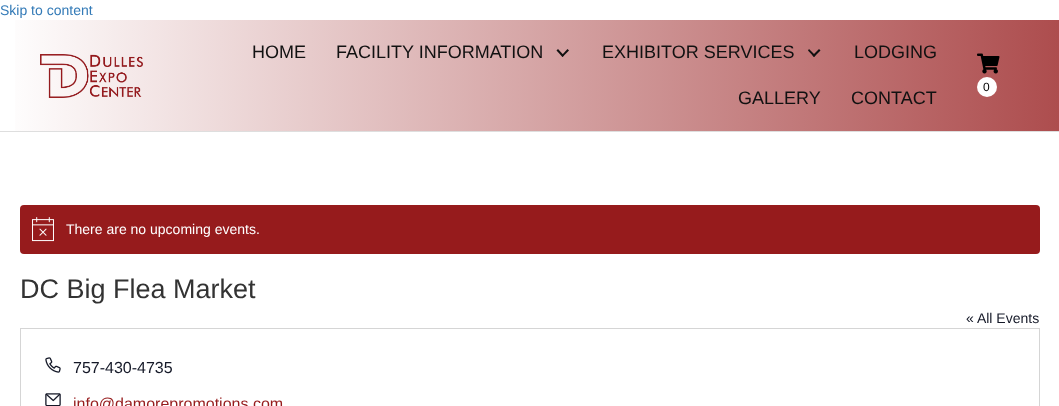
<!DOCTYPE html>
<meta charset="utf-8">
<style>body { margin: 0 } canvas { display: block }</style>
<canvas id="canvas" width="1059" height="406"></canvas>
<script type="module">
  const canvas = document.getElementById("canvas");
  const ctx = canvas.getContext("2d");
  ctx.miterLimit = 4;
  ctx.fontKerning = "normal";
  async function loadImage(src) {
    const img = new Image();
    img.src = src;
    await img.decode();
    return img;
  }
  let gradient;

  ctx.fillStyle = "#ffffff";
  ctx.fillRect(0, 0, 1059, 406);
  ctx.font = "14px Liberation Sans";
  ctx.fillStyle = "#337ab7";
  ctx.fillText("Skip to content", 0, 15);
  ctx.fillStyle = "#dedede";
  ctx.fillRect(0, 131, 1059, 1);
  gradient = ctx.createLinearGradient(0, 76, 1059, 75);
  gradient.addColorStop(0, "#ffffff");
  gradient.addColorStop(1, "#ad4d4e");
  ctx.fillStyle = gradient;
  ctx.fillRect(15, 20, 1044, 111);
  ctx.drawImage(await loadImage("img1.png"), 40, 54, 103, 44);
  ctx.font = "18px Liberation Sans";
  ctx.fillStyle = "#111111";
  ctx.fillText("HOME", 252, 58);
  ctx.fillText("FACILITY INFORMATION", 336, 58);
  ctx.beginPath();
  ctx.moveTo(567.5, 49);
  ctx.lineTo(569, 50.5);
  ctx.lineTo(562.5, 57);
  ctx.lineTo(561.5, 55.5);
  ctx.closePath();
  ctx.fill();
  ctx.beginPath();
  ctx.moveTo(558, 49);
  ctx.lineTo(564, 55.5);
  ctx.lineTo(562.5, 57);
  ctx.lineTo(556.5, 50.5);
  ctx.closePath();
  ctx.fill();
  ctx.fillText("EXHIBITOR SERVICES", 602, 58);
  ctx.beginPath();
  ctx.moveTo(819, 49);
  ctx.lineTo(820.5, 50.5);
  ctx.lineTo(814, 57);
  ctx.lineTo(812.5, 55.5);
  ctx.closePath();
  ctx.fill();
  ctx.beginPath();
  ctx.moveTo(809, 49);
  ctx.lineTo(815.5, 55.5);
  ctx.lineTo(814, 57);
  ctx.lineTo(808, 50.5);
  ctx.closePath();
  ctx.fill();
  ctx.fillText("LODGING", 854, 58);
  ctx.fillText("GALLERY", 738, 104);
  ctx.fillText("CONTACT", 851, 104);
  ctx.drawImage(await loadImage("img2.png"), 977, 53, 23, 21);
  ctx.fillStyle = "#ffffff";
  ctx.beginPath();
  ctx.arc(987, 87, 10, 0, Math.PI * 2);
  ctx.fill();
  ctx.font = "12px Liberation Sans";
  ctx.fillStyle = "#000000";
  ctx.fillText("0", 983, 91);
  ctx.fillStyle = "#961b1c";
  ctx.beginPath();
  ctx.roundRect(20, 205, 1020, 49, 4);
  ctx.fill();
  ctx.drawImage(await loadImage("img3.png"), 32, 217, 22, 25);
  ctx.font = "14px Liberation Sans";
  ctx.fillStyle = "#ffffff";
  ctx.fillText("There are no upcoming events.", 66, 234);
  ctx.font = "27px Liberation Sans";
  ctx.fillStyle = "#333333";
  ctx.fillText("DC Big Flea Market", 20, 298);
  ctx.font = "14px Liberation Sans";
  ctx.fillStyle = "#141827";
  ctx.fillText("« All Events", 966, 323);
  ctx.strokeStyle = "#d5d5d5";
  ctx.strokeRect(20.5, 328.5, 1019, 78);
  ctx.drawImage(await loadImage("img4.png"), 45, 357, 16, 16);
  ctx.font = "16px Liberation Sans";
  ctx.fillText("757-430-4735", 73, 373);
  ctx.drawImage(await loadImage("img5.png"), 45, 393, 16, 13);
  ctx.fillStyle = "#961b1c";
  ctx.fillText("info@damorepromotions.com", 73, 409);
</script>
